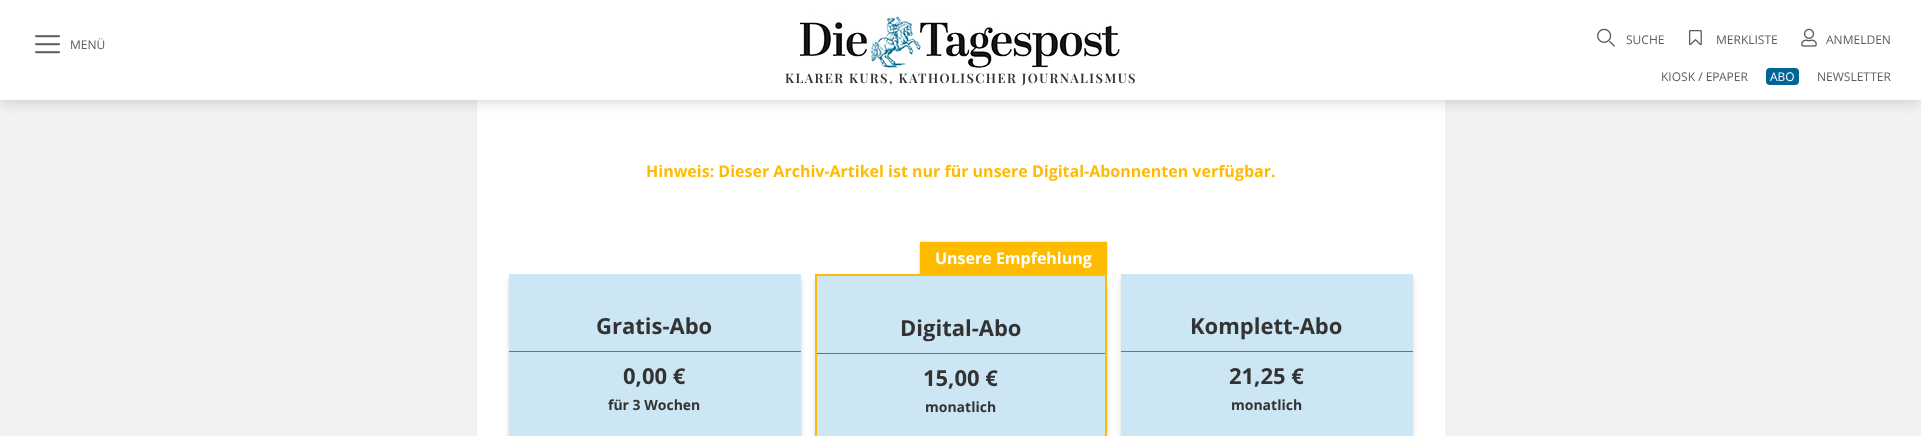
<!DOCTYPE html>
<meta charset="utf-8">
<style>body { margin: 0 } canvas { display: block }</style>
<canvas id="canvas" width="1921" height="436"></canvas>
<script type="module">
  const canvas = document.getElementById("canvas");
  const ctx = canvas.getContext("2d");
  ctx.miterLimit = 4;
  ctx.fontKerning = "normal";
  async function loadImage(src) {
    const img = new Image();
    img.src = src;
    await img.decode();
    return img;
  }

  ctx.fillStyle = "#f2f2f2";
  ctx.fillRect(0, 0, 1921, 436);
  ctx.fillStyle = "#ffffff";
  ctx.fillRect(477, 100, 968, 336);
  ctx.fillStyle = "rgba(0, 0, 0, 0.2)";
  ctx.filter = "blur(8px)";
  ctx.beginPath();
  ctx.rect(0, 0, 1921, 100);
  ctx.fill();
  ctx.filter = "none";
  ctx.fillStyle = "#ffffff";
  ctx.fillRect(0, 0, 1921, 100);
  ctx.drawImage(await loadImage("img1.png"), 35, 35, 25, 19);
  ctx.font = "12px Open Sans";
  ctx.fillStyle = "#5c5c5c";
  ctx.fillText("MENÜ", 70, 49);
  ctx.drawImage(await loadImage("img2.png"), 1597, 28, 18, 19);
  ctx.fillText("SUCHE", 1626, 44);
  ctx.drawImage(await loadImage("img3.png"), 1689, 30, 13, 16);
  ctx.fillText("MERKLISTE", 1716, 44);
  ctx.drawImage(await loadImage("img4.png"), 1801, 28, 16, 19);
  ctx.fillText("ANMELDEN", 1826, 44);
  ctx.fillText("KIOSK / EPAPER", 1661, 81);
  ctx.fillStyle = "#006594";
  ctx.beginPath();
  ctx.roundRect(1766, 68, 33, 17, 4);
  ctx.fill();
  ctx.fillStyle = "#ffffff";
  ctx.fillText("ABO", 1770, 81);
  ctx.fillStyle = "#5c5c5c";
  ctx.fillText("NEWSLETTER", 1817, 81);
  ctx.drawImage(await loadImage("img5.png"), 800, 15, 320, 55);
  ctx.letterSpacing = "1.45px";
  ctx.font = "600 13px Playfair Display";
  ctx.fillStyle = "#333333";
  ctx.fillText("KLARER KURS, KATHOLISCHER JOURNALISMUS", 785, 83);
  ctx.letterSpacing = "0px";
  ctx.font = "bold 16px Open Sans";
  ctx.fillStyle = "#ffbb00";
  ctx.fillText("Hinweis: Dieser Archiv-Artikel ist nur für unsere Digital-Abonnenten verfügbar.", 646, 177);
  ctx.fillStyle = "rgba(50, 50, 50, 0.2)";
  ctx.filter = "blur(2.5px)";
  ctx.beginPath();
  ctx.rect(509, 279, 292, 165);
  ctx.fill();
  ctx.filter = "none";
  ctx.fillStyle = "#cce6f3";
  ctx.fillRect(509, 274, 292, 162);
  ctx.font = "bold 22px Open Sans";
  ctx.fillStyle = "#333333";
  ctx.fillText("Gratis-Abo", 596, 334);
  ctx.fillStyle = "#707070";
  ctx.fillRect(509, 351, 292, 1);
  ctx.fillStyle = "#333333";
  ctx.fillText("0,00 €", 623, 384);
  ctx.font = "bold 14px Open Sans";
  ctx.fillText("für 3 Wochen", 608, 410);
  ctx.fillStyle = "rgba(50, 50, 50, 0.2)";
  ctx.filter = "blur(2.5px)";
  ctx.beginPath();
  ctx.rect(815, 279, 292, 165);
  ctx.fill();
  ctx.filter = "none";
  ctx.fillStyle = "#cce6f3";
  ctx.beginPath();
  ctx.rect(816, 275, 290, 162);
  ctx.fill();
  ctx.strokeStyle = "#ffbb00";
  ctx.lineWidth = 2;
  ctx.stroke();
  ctx.fillStyle = "#cccccc";
  ctx.filter = "blur(1px)";
  ctx.beginPath();
  ctx.rect(920, 242, 187, 33);
  ctx.fill();
  ctx.filter = "none";
  ctx.fillStyle = "#ffbb00";
  ctx.fillRect(920, 242, 187, 33);
  ctx.font = "bold 16px Open Sans";
  ctx.fillStyle = "#ffffff";
  ctx.fillText("Unsere Empfehlung", 935, 264);
  ctx.font = "bold 22px Open Sans";
  ctx.fillStyle = "#333333";
  ctx.fillText("Digital-Abo", 900, 336);
  ctx.fillStyle = "#707070";
  ctx.fillRect(817, 353, 288, 1);
  ctx.fillStyle = "#333333";
  ctx.fillText("15,00 €", 923, 386);
  ctx.font = "bold 14px Open Sans";
  ctx.fillText("monatlich", 925, 412);
  ctx.fillStyle = "rgba(50, 50, 50, 0.2)";
  ctx.filter = "blur(2.5px)";
  ctx.beginPath();
  ctx.rect(1121, 279, 292, 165);
  ctx.fill();
  ctx.filter = "none";
  ctx.fillStyle = "#cce6f3";
  ctx.fillRect(1121, 274, 292, 162);
  ctx.font = "bold 22px Open Sans";
  ctx.fillStyle = "#333333";
  ctx.fillText("Komplett-Abo", 1190, 334);
  ctx.fillStyle = "#707070";
  ctx.fillRect(1121, 351, 292, 1);
  ctx.fillStyle = "#333333";
  ctx.fillText("21,25 €", 1229, 384);
  ctx.font = "bold 14px Open Sans";
  ctx.fillText("monatlich", 1231, 410);
</script>
